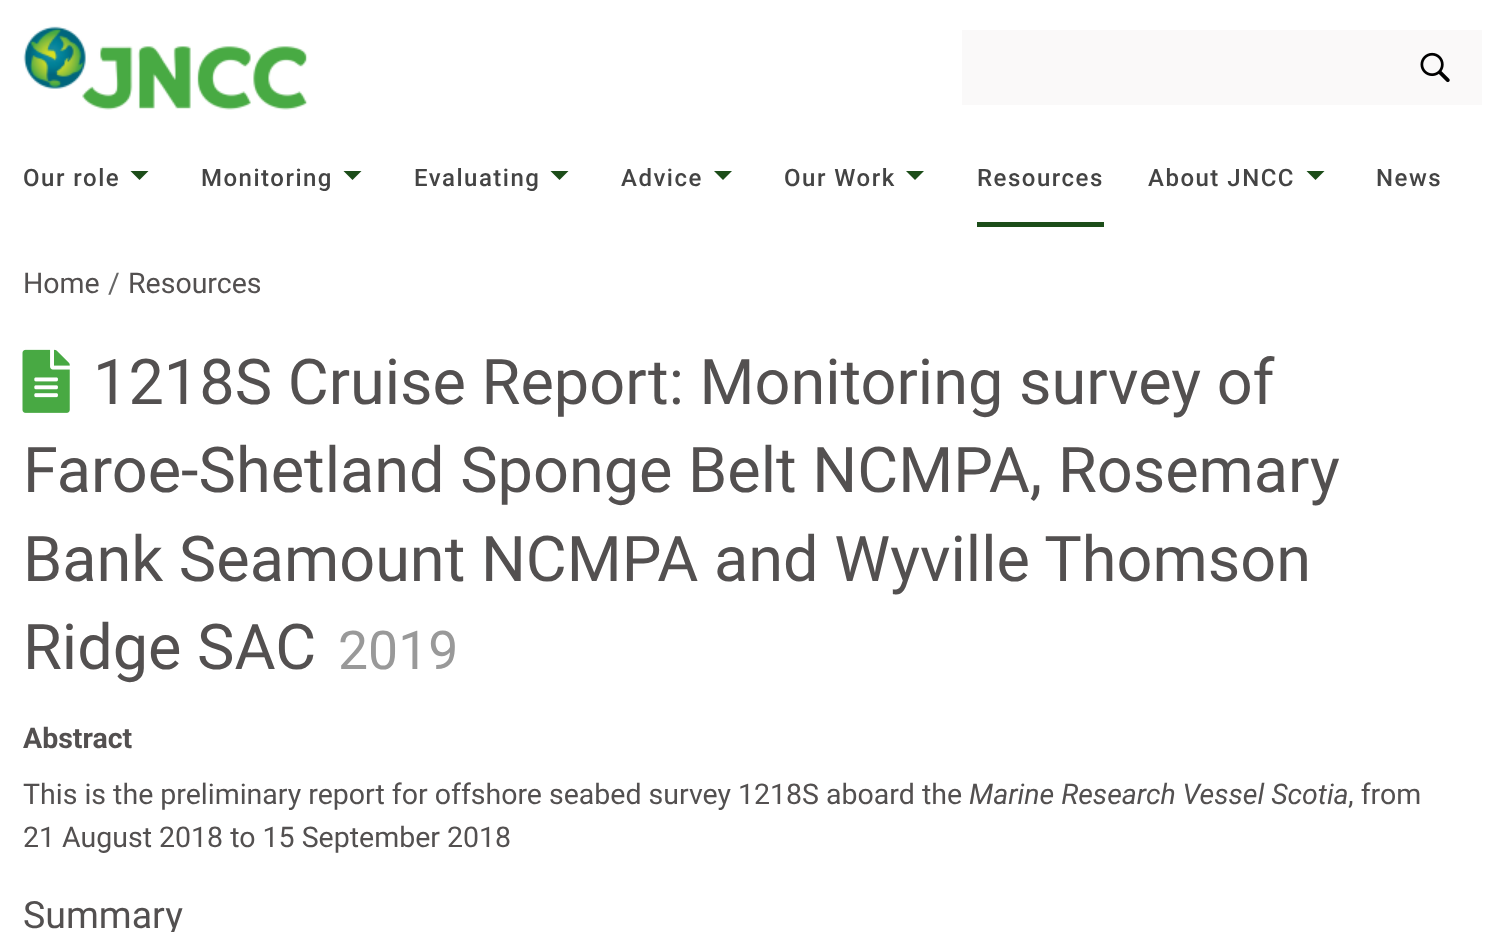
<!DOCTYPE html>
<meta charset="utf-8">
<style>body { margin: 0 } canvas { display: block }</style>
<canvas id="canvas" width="1504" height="932"></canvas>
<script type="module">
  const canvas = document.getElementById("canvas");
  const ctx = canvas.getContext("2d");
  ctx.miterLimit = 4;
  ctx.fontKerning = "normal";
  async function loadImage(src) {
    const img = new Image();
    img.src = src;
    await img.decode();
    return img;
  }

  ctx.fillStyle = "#ffffff";
  ctx.fillRect(0, 0, 1504, 932);
  ctx.drawImage(await loadImage("img1.png"), 23, 26, 285, 84);
  ctx.fillStyle = "#faf9f9";
  ctx.fillRect(962, 30, 520, 75);
  ctx.drawImage(await loadImage("img2.png"), 1420, 52, 30, 31);
  ctx.letterSpacing = "1.5px";
  ctx.font = "500 24px Roboto";
  ctx.fillStyle = "#444444";
  ctx.fillText("Our role", 23, 186);
  ctx.fillStyle = "#1c4d19";
  ctx.beginPath();
  ctx.moveTo(130.5, 171);
  ctx.lineTo(148.5, 171);
  ctx.lineTo(139.5, 180);
  ctx.closePath();
  ctx.fill();
  ctx.fillStyle = "#444444";
  ctx.fillText("Monitoring", 201, 186);
  ctx.fillStyle = "#1c4d19";
  ctx.beginPath();
  ctx.moveTo(343.5, 171);
  ctx.lineTo(361.5, 171);
  ctx.lineTo(352.5, 180);
  ctx.closePath();
  ctx.fill();
  ctx.fillStyle = "#444444";
  ctx.fillText("Evaluating", 414, 186);
  ctx.fillStyle = "#1c4d19";
  ctx.beginPath();
  ctx.moveTo(550.5, 171);
  ctx.lineTo(568.5, 171);
  ctx.lineTo(559.5, 180);
  ctx.closePath();
  ctx.fill();
  ctx.fillStyle = "#444444";
  ctx.fillText("Advice", 621, 186);
  ctx.fillStyle = "#1c4d19";
  ctx.beginPath();
  ctx.moveTo(714, 171);
  ctx.lineTo(732, 171);
  ctx.lineTo(723, 180);
  ctx.closePath();
  ctx.fill();
  ctx.fillStyle = "#444444";
  ctx.fillText("Our Work", 784, 186);
  ctx.fillStyle = "#1c4d19";
  ctx.beginPath();
  ctx.moveTo(906, 171);
  ctx.lineTo(924, 171);
  ctx.lineTo(915, 180);
  ctx.closePath();
  ctx.fill();
  ctx.fillRect(977, 222, 127, 5);
  ctx.fillStyle = "#444444";
  ctx.fillText("Resources", 977, 186);
  ctx.fillText("About JNCC", 1148, 186);
  ctx.fillStyle = "#1c4d19";
  ctx.beginPath();
  ctx.moveTo(1306.5, 171);
  ctx.lineTo(1324.5, 171);
  ctx.lineTo(1315.5, 180);
  ctx.closePath();
  ctx.fill();
  ctx.fillStyle = "#444444";
  ctx.fillText("News", 1376, 186);
  ctx.letterSpacing = "0px";
  ctx.font = "28.5px Roboto";
  ctx.fillStyle = "#535050";
  ctx.fillText("Home", 23, 293);
  ctx.fillStyle = "#666666";
  ctx.fillText("/", 108, 293);
  ctx.fillStyle = "#535050";
  ctx.fillText("Resources", 128, 293);
  ctx.drawImage(await loadImage("img3.png"), 22, 349, 48, 64);
  ctx.font = "63px Roboto";
  ctx.fillText("1218S Cruise Report: Monitoring survey of", 93, 404);
  ctx.fillText("Faroe-Shetland Sponge Belt NCMPA, Rosemary", 23, 492);
  ctx.fillText("Bank Seamount NCMPA and Wyville Thomson", 23, 581);
  ctx.fillText("Ridge SAC", 23, 669);
  ctx.font = "53.5px Roboto";
  ctx.fillStyle = "#999999";
  ctx.fillText("2019", 338, 669);
  ctx.font = "bold 28.5px Roboto";
  ctx.fillStyle = "#535050";
  ctx.fillText("Abstract", 23, 748);
  ctx.font = "28.5px Roboto";
  ctx.fillText("This is the preliminary report for offshore seabed survey 1218S aboard the", 23, 804);
  ctx.font = "italic 28.5px Roboto";
  ctx.fillText("Marine Research Vessel Scotia", 969, 804);
  ctx.font = "28.5px Roboto";
  ctx.fillText(", from", 1348, 804);
  ctx.fillText("21 August 2018 to 15 September 2018", 23, 847);
  ctx.font = "37.5px Roboto";
  ctx.fillText("Summary", 23, 928);
</script>
